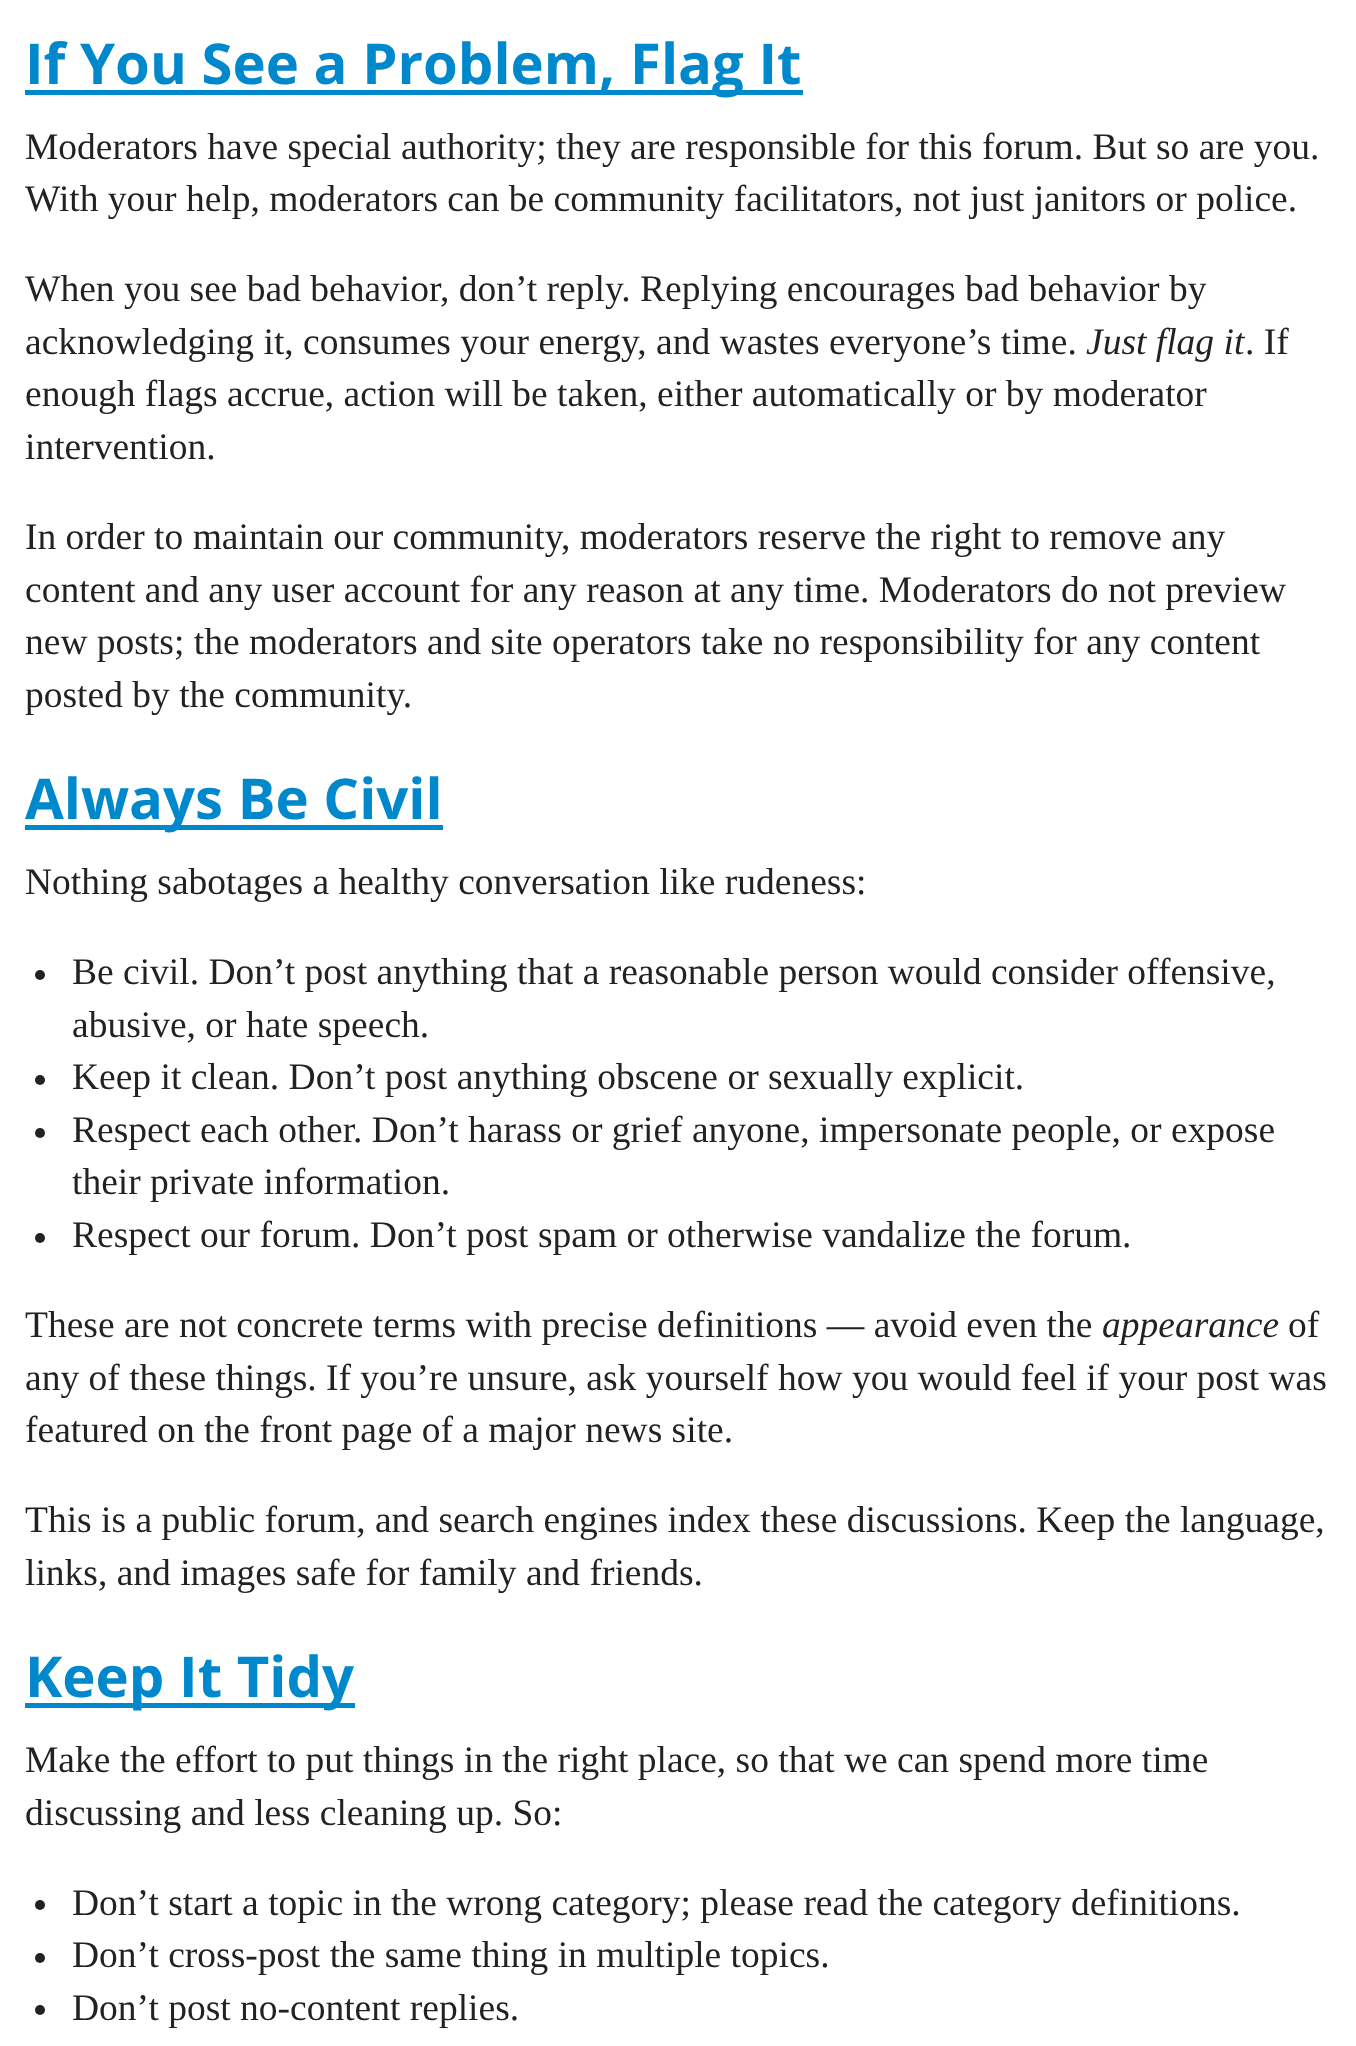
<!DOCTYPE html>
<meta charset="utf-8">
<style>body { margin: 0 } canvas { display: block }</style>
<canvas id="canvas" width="1356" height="2046"></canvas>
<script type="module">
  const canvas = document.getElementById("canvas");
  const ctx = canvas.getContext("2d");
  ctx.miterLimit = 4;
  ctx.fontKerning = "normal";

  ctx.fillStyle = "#ffffff";
  ctx.fillRect(0, 0, 1356, 2046);
  ctx.fillStyle = "#0088cc";
  ctx.fillRect(25, 90, 778, 5);
  ctx.font = "bold 56.25px Open Sans";
  ctx.fillText("If You See a Problem, Flag It", 25, 84);
  ctx.font = "37.5px Liberation Serif";
  ctx.fillStyle = "#222222";
  ctx.fillText("Moderators have special authority; they are responsible for this forum. But so are you.", 25, 159);
  ctx.fillText("With your help, moderators can be community facilitators, not just janitors or police.", 25, 211);
  ctx.fillText("When you see bad behavior, don’t reply. Replying encourages bad behavior by", 25, 301);
  ctx.fillText("acknowledging it, consumes your energy, and wastes everyone’s time.", 25, 354);
  ctx.font = "italic 37.5px Liberation Serif";
  ctx.fillText("Just flag it", 1086, 354);
  ctx.font = "37.5px Liberation Serif";
  ctx.fillText(". If", 1245, 354);
  ctx.fillText("enough flags accrue, action will be taken, either automatically or by moderator", 25, 406);
  ctx.fillText("intervention.", 25, 459);
  ctx.fillText("In order to maintain our community, moderators reserve the right to remove any", 25, 549);
  ctx.fillText("content and any user account for any reason at any time. Moderators do not preview", 25, 602);
  ctx.fillText("new posts; the moderators and site operators take no responsibility for any content", 25, 654);
  ctx.fillText("posted by the community.", 25, 707);
  ctx.fillStyle = "#0088cc";
  ctx.fillRect(25, 825, 418, 5);
  ctx.font = "bold 56.25px Open Sans";
  ctx.fillText("Always Be Civil", 25, 819);
  ctx.font = "37.5px Liberation Serif";
  ctx.fillStyle = "#222222";
  ctx.fillText("Nothing sabotages a healthy conversation like rudeness:", 25, 894);
  ctx.beginPath();
  ctx.arc(40, 975, 5, 0, Math.PI * 2);
  ctx.fill();
  ctx.fillText("Be civil. Don’t post anything that a reasonable person would consider offensive,", 72, 984);
  ctx.fillText("abusive, or hate speech.", 72, 1037);
  ctx.beginPath();
  ctx.arc(40, 1080, 5, 0, Math.PI * 2);
  ctx.fill();
  ctx.fillText("Keep it clean. Don’t post anything obscene or sexually explicit.", 72, 1089);
  ctx.beginPath();
  ctx.arc(40, 1133, 5, 0, Math.PI * 2);
  ctx.fill();
  ctx.fillText("Respect each other. Don’t harass or grief anyone, impersonate people, or expose", 72, 1142);
  ctx.fillText("their private information.", 72, 1194);
  ctx.beginPath();
  ctx.arc(40, 1238, 5, 0, Math.PI * 2);
  ctx.fill();
  ctx.fillText("Respect our forum. Don’t post spam or otherwise vandalize the forum.", 72, 1247);
  ctx.fillText("These are not concrete terms with precise definitions — avoid even the", 25, 1337);
  ctx.font = "italic 37.5px Liberation Serif";
  ctx.fillText("appearance", 1102, 1337);
  ctx.font = "37.5px Liberation Serif";
  ctx.fillText("of", 1288, 1337);
  ctx.fillText("any of these things. If you’re unsure, ask yourself how you would feel if your post was", 25, 1390);
  ctx.fillText("featured on the front page of a major news site.", 25, 1442);
  ctx.fillText("This is a public forum, and search engines index these discussions. Keep the language,", 25, 1532);
  ctx.fillText("links, and images safe for family and friends.", 25, 1585);
  ctx.fillStyle = "#0088cc";
  ctx.fillRect(25, 1703, 330, 5);
  ctx.font = "bold 56.25px Open Sans";
  ctx.fillText("Keep It Tidy", 25, 1697);
  ctx.font = "37.5px Liberation Serif";
  ctx.fillStyle = "#222222";
  ctx.fillText("Make the effort to put things in the right place, so that we can spend more time", 25, 1772);
  ctx.fillText("discussing and less cleaning up. So:", 25, 1825);
  ctx.beginPath();
  ctx.arc(40, 1905, 5, 0, Math.PI * 2);
  ctx.fill();
  ctx.fillText("Don’t start a topic in the wrong category; please read the category definitions.", 72, 1915);
  ctx.beginPath();
  ctx.arc(40, 1958, 5, 0, Math.PI * 2);
  ctx.fill();
  ctx.fillText("Don’t cross-post the same thing in multiple topics.", 72, 1967);
  ctx.beginPath();
  ctx.arc(40, 2010, 5, 0, Math.PI * 2);
  ctx.fill();
  ctx.fillText("Don’t post no-content replies.", 72, 2020);
</script>
